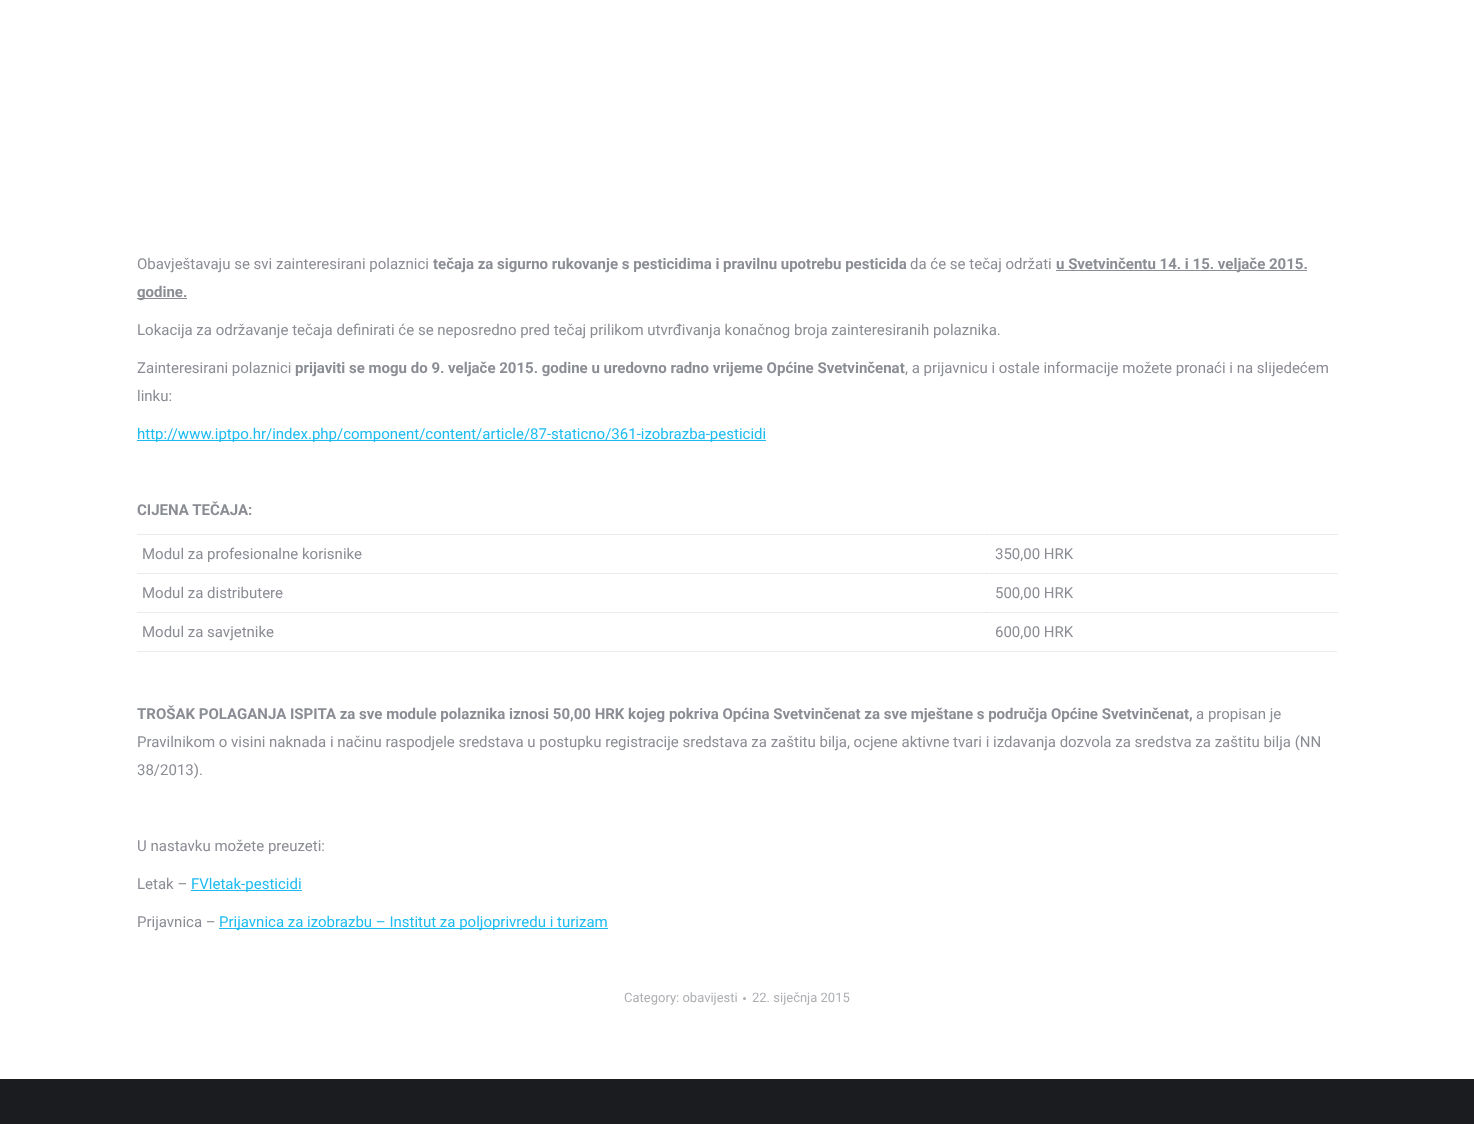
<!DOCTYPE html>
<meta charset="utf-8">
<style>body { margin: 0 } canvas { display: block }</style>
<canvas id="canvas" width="1474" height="1124"></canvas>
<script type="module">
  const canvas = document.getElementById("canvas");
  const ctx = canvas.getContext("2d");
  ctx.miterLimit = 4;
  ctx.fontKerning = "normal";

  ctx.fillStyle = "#ffffff";
  ctx.fillRect(0, 0, 1474, 1124);
  ctx.fillStyle = "#ebebeb";
  ctx.fillRect(137, 534, 1201, 1);
  ctx.fillRect(137, 573, 1201, 1);
  ctx.fillRect(137, 612, 1201, 1);
  ctx.font = "15px Roboto";
  ctx.fillStyle = "#8b8d94";
  ctx.fillText("Obavještavaju se svi zainteresirani polaznici", 137, 269);
  ctx.font = "bold 15px Roboto";
  ctx.fillText("tečaja za sigurno rukovanje s pesticidima i pravilnu upotrebu pesticida", 433, 269);
  ctx.font = "15px Roboto";
  ctx.fillText("da će se tečaj održati", 910, 269);
  ctx.fillRect(1056, 270, 251, 1);
  ctx.font = "bold 15px Roboto";
  ctx.fillText("u Svetvinčentu 14. i 15. veljače 2015.", 1056, 269);
  ctx.fillRect(137, 298, 50, 1);
  ctx.fillText("godine.", 137, 297);
  ctx.font = "15px Roboto";
  ctx.fillText("Lokacija za održavanje tečaja definirati će se neposredno pred tečaj prilikom utvrđivanja konačnog broja zainteresiranih polaznika.", 137, 335);
  ctx.fillText("Zainteresirani polaznici", 137, 373);
  ctx.font = "bold 15px Roboto";
  ctx.fillText("prijaviti se mogu do 9. veljače 2015. godine u uredovno radno vrijeme Općine Svetvinčenat", 295, 373);
  ctx.font = "15px Roboto";
  ctx.fillText(", a prijavnicu i ostale informacije možete pronaći i na slijedećem", 905, 373);
  ctx.fillText("linku:", 137, 401);
  ctx.fillStyle = "#1ebbf0";
  ctx.fillRect(137, 440, 629, 1);
  ctx.fillText("http://www.iptpo.hr/index.php/component/content/article/87-staticno/361-izobrazba-pesticidi", 137, 439);
  ctx.font = "bold 15px Roboto";
  ctx.fillStyle = "#8b8d94";
  ctx.fillText("CIJENA TEČAJA:", 137, 515);
  ctx.fillStyle = "#ebebeb";
  ctx.fillRect(137, 651, 1200, 1);
  ctx.font = "15px Roboto";
  ctx.fillStyle = "#8b8d94";
  ctx.fillText("Modul za profesionalne korisnike", 142, 559);
  ctx.fillStyle = "#d8d8d8";
  ctx.fillRect(986, 534, 1, 1);
  ctx.fillStyle = "#8b8d94";
  ctx.fillText("350,00 HRK", 995, 559);
  ctx.fillText("Modul za distributere", 142, 598);
  ctx.fillStyle = "#d8d8d8";
  ctx.fillRect(986, 573, 1, 1);
  ctx.fillStyle = "#8b8d94";
  ctx.fillText("500,00 HRK", 995, 598);
  ctx.fillText("Modul za savjetnike", 142, 637);
  ctx.fillStyle = "#d8d8d8";
  ctx.fillRect(986, 612, 1, 1);
  ctx.fillStyle = "#8b8d94";
  ctx.fillText("600,00 HRK", 995, 637);
  ctx.font = "bold 15px Roboto";
  ctx.fillText("TROŠAK POLAGANJA ISPITA za sve module polaznika iznosi 50,00 HRK kojeg pokriva Općina Svetvinčenat za sve mještane s područja Općine Svetvinčenat,", 137, 719);
  ctx.font = "15px Roboto";
  ctx.fillText("a propisan je", 1196, 719);
  ctx.fillText("Pravilnikom o visini naknada i načinu raspodjele sredstava u postupku registracije sredstava za zaštitu bilja, ocjene aktivne tvari i izdavanja dozvola za sredstva za zaštitu bilja (NN", 137, 747);
  ctx.fillText("38/2013).", 137, 775);
  ctx.fillText("U nastavku možete preuzeti:", 137, 851);
  ctx.fillText("Letak –", 137, 889);
  ctx.fillStyle = "#1ebbf0";
  ctx.fillRect(191, 890, 111, 1);
  ctx.fillText("FVletak-pesticidi", 191, 889);
  ctx.fillStyle = "#8b8d94";
  ctx.fillText("Prijavnica –", 137, 927);
  ctx.fillStyle = "#1ebbf0";
  ctx.fillRect(219, 928, 389, 1);
  ctx.fillText("Prijavnica za izobrazbu – Institut za poljoprivredu i turizam", 219, 927);
  ctx.font = "13px Roboto";
  ctx.fillStyle = "#adafb3";
  ctx.fillText("Category: obavijesti", 624, 1002);
  ctx.beginPath();
  ctx.arc(744.5, 998.5, 1.5, 0, Math.PI * 2);
  ctx.fill();
  ctx.fillText("22. siječnja 2015", 752, 1002);
  ctx.fillStyle = "#1a1c20";
  ctx.fillRect(0, 1079, 1474, 45);
</script>
